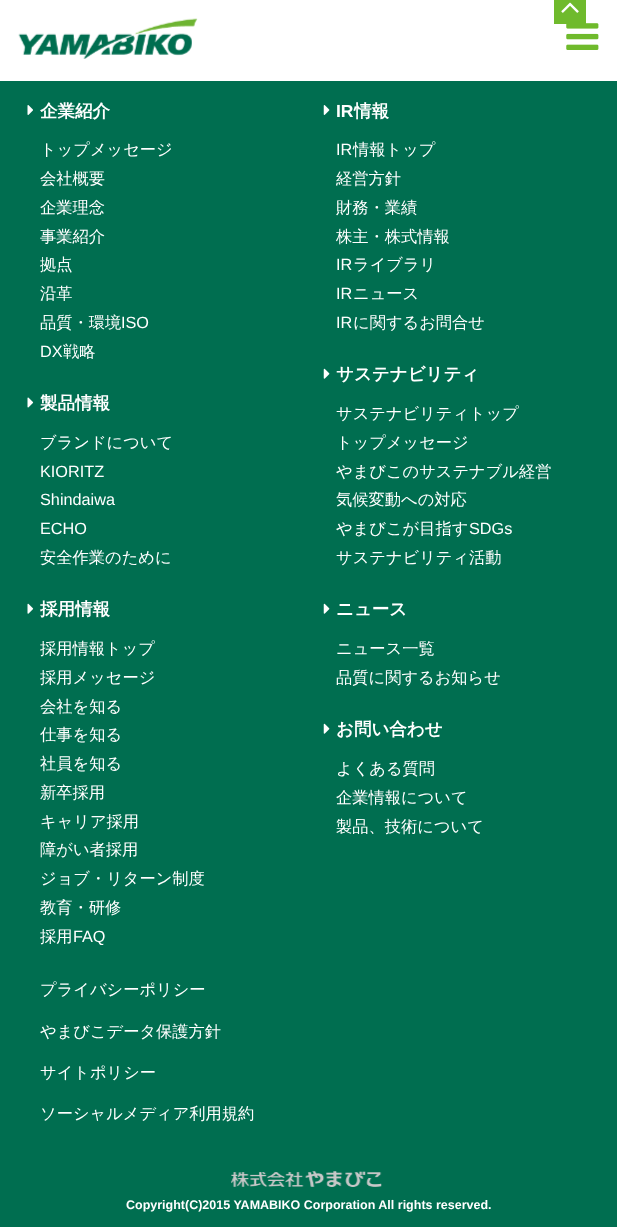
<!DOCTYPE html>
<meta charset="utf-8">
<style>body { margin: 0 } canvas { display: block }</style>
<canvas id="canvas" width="617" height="1227"></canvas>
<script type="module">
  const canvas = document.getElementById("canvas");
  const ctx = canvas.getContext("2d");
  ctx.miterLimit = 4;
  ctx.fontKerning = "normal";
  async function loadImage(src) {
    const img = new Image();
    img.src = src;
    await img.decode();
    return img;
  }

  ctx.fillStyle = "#006e50";
  ctx.fillRect(0, 0, 617, 1227);
  ctx.fillStyle = "#ffffff";
  ctx.fillRect(0, 0, 617, 81);
  ctx.drawImage(await loadImage("img1.png"), 18, 18, 180, 41);
  ctx.drawImage(await loadImage("img2.png"), 566, 23, 33, 27);
  ctx.fillStyle = "#6fba2c";
  ctx.fillRect(554, 0, 32, 24);
  ctx.drawImage(await loadImage("img3.png"), 561, 2, 18, 11);
  ctx.drawImage(await loadImage("img4.png"), 27, 105, 6, 10);
  ctx.font = "bold 17.5px WenQuanYi Zen Hei";
  ctx.fillStyle = "#ffffff";
  ctx.fillText("企業紹介", 40, 117);
  ctx.font = "500 16.25px WenQuanYi Zen Hei";
  ctx.fillText("トップメッセージ", 40, 155);
  ctx.fillText("会社概要", 40, 184);
  ctx.fillText("企業理念", 40, 213);
  ctx.fillText("事業紹介", 40, 242);
  ctx.fillText("拠点", 40, 270);
  ctx.fillText("沿革", 40, 299);
  ctx.fillText("品質・環境", 40, 328);
  ctx.font = "16.25px Liberation Sans";
  ctx.fillText("ISO", 121, 328);
  ctx.fillText("DX", 40, 357);
  ctx.font = "500 16.25px WenQuanYi Zen Hei";
  ctx.fillText("戦略", 63, 357);
  ctx.drawImage(await loadImage("img5.png"), 27, 397, 7, 11);
  ctx.font = "bold 17.5px WenQuanYi Zen Hei";
  ctx.fillText("製品情報", 40, 409);
  ctx.font = "500 16.25px WenQuanYi Zen Hei";
  ctx.fillText("ブランドについて", 40, 448);
  ctx.font = "16.25px Liberation Sans";
  ctx.fillText("KIORITZ", 40, 477);
  ctx.fillText("Shindaiwa", 40, 505);
  ctx.fillText("ECHO", 40, 534);
  ctx.font = "500 16.25px WenQuanYi Zen Hei";
  ctx.fillText("安全作業のために", 40, 563);
  ctx.drawImage(await loadImage("img6.png"), 323, 105, 7, 10);
  ctx.font = "bold 17.5px Liberation Sans";
  ctx.fillText("IR", 336, 117);
  ctx.font = "bold 17.5px WenQuanYi Zen Hei";
  ctx.fillText("情報", 354, 117);
  ctx.font = "16.25px Liberation Sans";
  ctx.fillText("IR", 336, 155);
  ctx.font = "500 16.25px WenQuanYi Zen Hei";
  ctx.fillText("情報トップ", 353, 155);
  ctx.fillText("経営方針", 336, 184);
  ctx.fillText("財務・業績", 336, 213);
  ctx.fillText("株主・株式情報", 336, 242);
  ctx.font = "16.25px Liberation Sans";
  ctx.fillText("IR", 336, 270);
  ctx.font = "500 16.25px WenQuanYi Zen Hei";
  ctx.fillText("ライブラリ", 353, 270);
  ctx.font = "16.25px Liberation Sans";
  ctx.fillText("IR", 336, 299);
  ctx.font = "500 16.25px WenQuanYi Zen Hei";
  ctx.fillText("ニュース", 353, 299);
  ctx.font = "16.25px Liberation Sans";
  ctx.fillText("IR", 336, 328);
  ctx.font = "500 16.25px WenQuanYi Zen Hei";
  ctx.fillText("に関するお問合せ", 353, 328);
  ctx.drawImage(await loadImage("img7.png"), 323, 368, 7, 11);
  ctx.font = "bold 17.5px WenQuanYi Zen Hei";
  ctx.fillText("サステナビリティ", 336, 380);
  ctx.font = "500 16.25px WenQuanYi Zen Hei";
  ctx.fillText("サステナビリティトップ", 336, 419);
  ctx.fillText("トップメッセージ", 336, 448);
  ctx.fillText("やまびこのサステナブル経営", 336, 477);
  ctx.fillText("気候変動への対応", 336, 505);
  ctx.fillText("やまびこが目指す", 336, 534);
  ctx.font = "16.25px Liberation Sans";
  ctx.fillText("SDGs", 469, 534);
  ctx.font = "500 16.25px WenQuanYi Zen Hei";
  ctx.fillText("サステナビリティ活動", 336, 563);
  ctx.drawImage(await loadImage("img8.png"), 27, 603, 7, 11);
  ctx.font = "bold 17.5px WenQuanYi Zen Hei";
  ctx.fillText("採用情報", 40, 615);
  ctx.font = "500 16.25px WenQuanYi Zen Hei";
  ctx.fillText("採用情報トップ", 40, 654);
  ctx.fillText("採用メッセージ", 40, 683);
  ctx.fillText("会社を知る", 40, 712);
  ctx.fillText("仕事を知る", 40, 740);
  ctx.fillText("社員を知る", 40, 769);
  ctx.fillText("新卒採用", 40, 798);
  ctx.fillText("キャリア採用", 40, 827);
  ctx.fillText("障がい者採用", 40, 855);
  ctx.fillText("ジョブ・リターン制度", 40, 884);
  ctx.fillText("教育・研修", 40, 913);
  ctx.fillText("採用", 40, 942);
  ctx.font = "16.25px Liberation Sans";
  ctx.fillText("FAQ", 73, 942);
  ctx.drawImage(await loadImage("img7.png"), 323, 603, 7, 11);
  ctx.font = "bold 17.5px WenQuanYi Zen Hei";
  ctx.fillText("ニュース", 336, 615);
  ctx.font = "500 16.25px WenQuanYi Zen Hei";
  ctx.fillText("ニュース一覧", 336, 654);
  ctx.fillText("品質に関するお知らせ", 336, 683);
  ctx.drawImage(await loadImage("img7.png"), 323, 723, 7, 11);
  ctx.font = "bold 17.5px WenQuanYi Zen Hei";
  ctx.fillText("お問い合わせ", 336, 735);
  ctx.font = "500 16.25px WenQuanYi Zen Hei";
  ctx.fillText("よくある質問", 336, 774);
  ctx.fillText("企業情報について", 336, 803);
  ctx.fillText("製品、技術について", 336, 832);
  ctx.fillText("プライバシーポリシー", 40, 995);
  ctx.fillText("やまびこデータ保護方針", 40, 1037);
  ctx.fillText("サイトポリシー", 40, 1078);
  ctx.fillText("ソーシャルメディア利用規約", 40, 1119);
  ctx.drawImage(await loadImage("img9.png"), 231, 1171, 151, 16);
  ctx.font = "bold 12.5px Liberation Sans";
  ctx.fillText("Copyright(C)2015 YAMABIKO Corporation All rights reserved.", 126, 1209);
</script>
